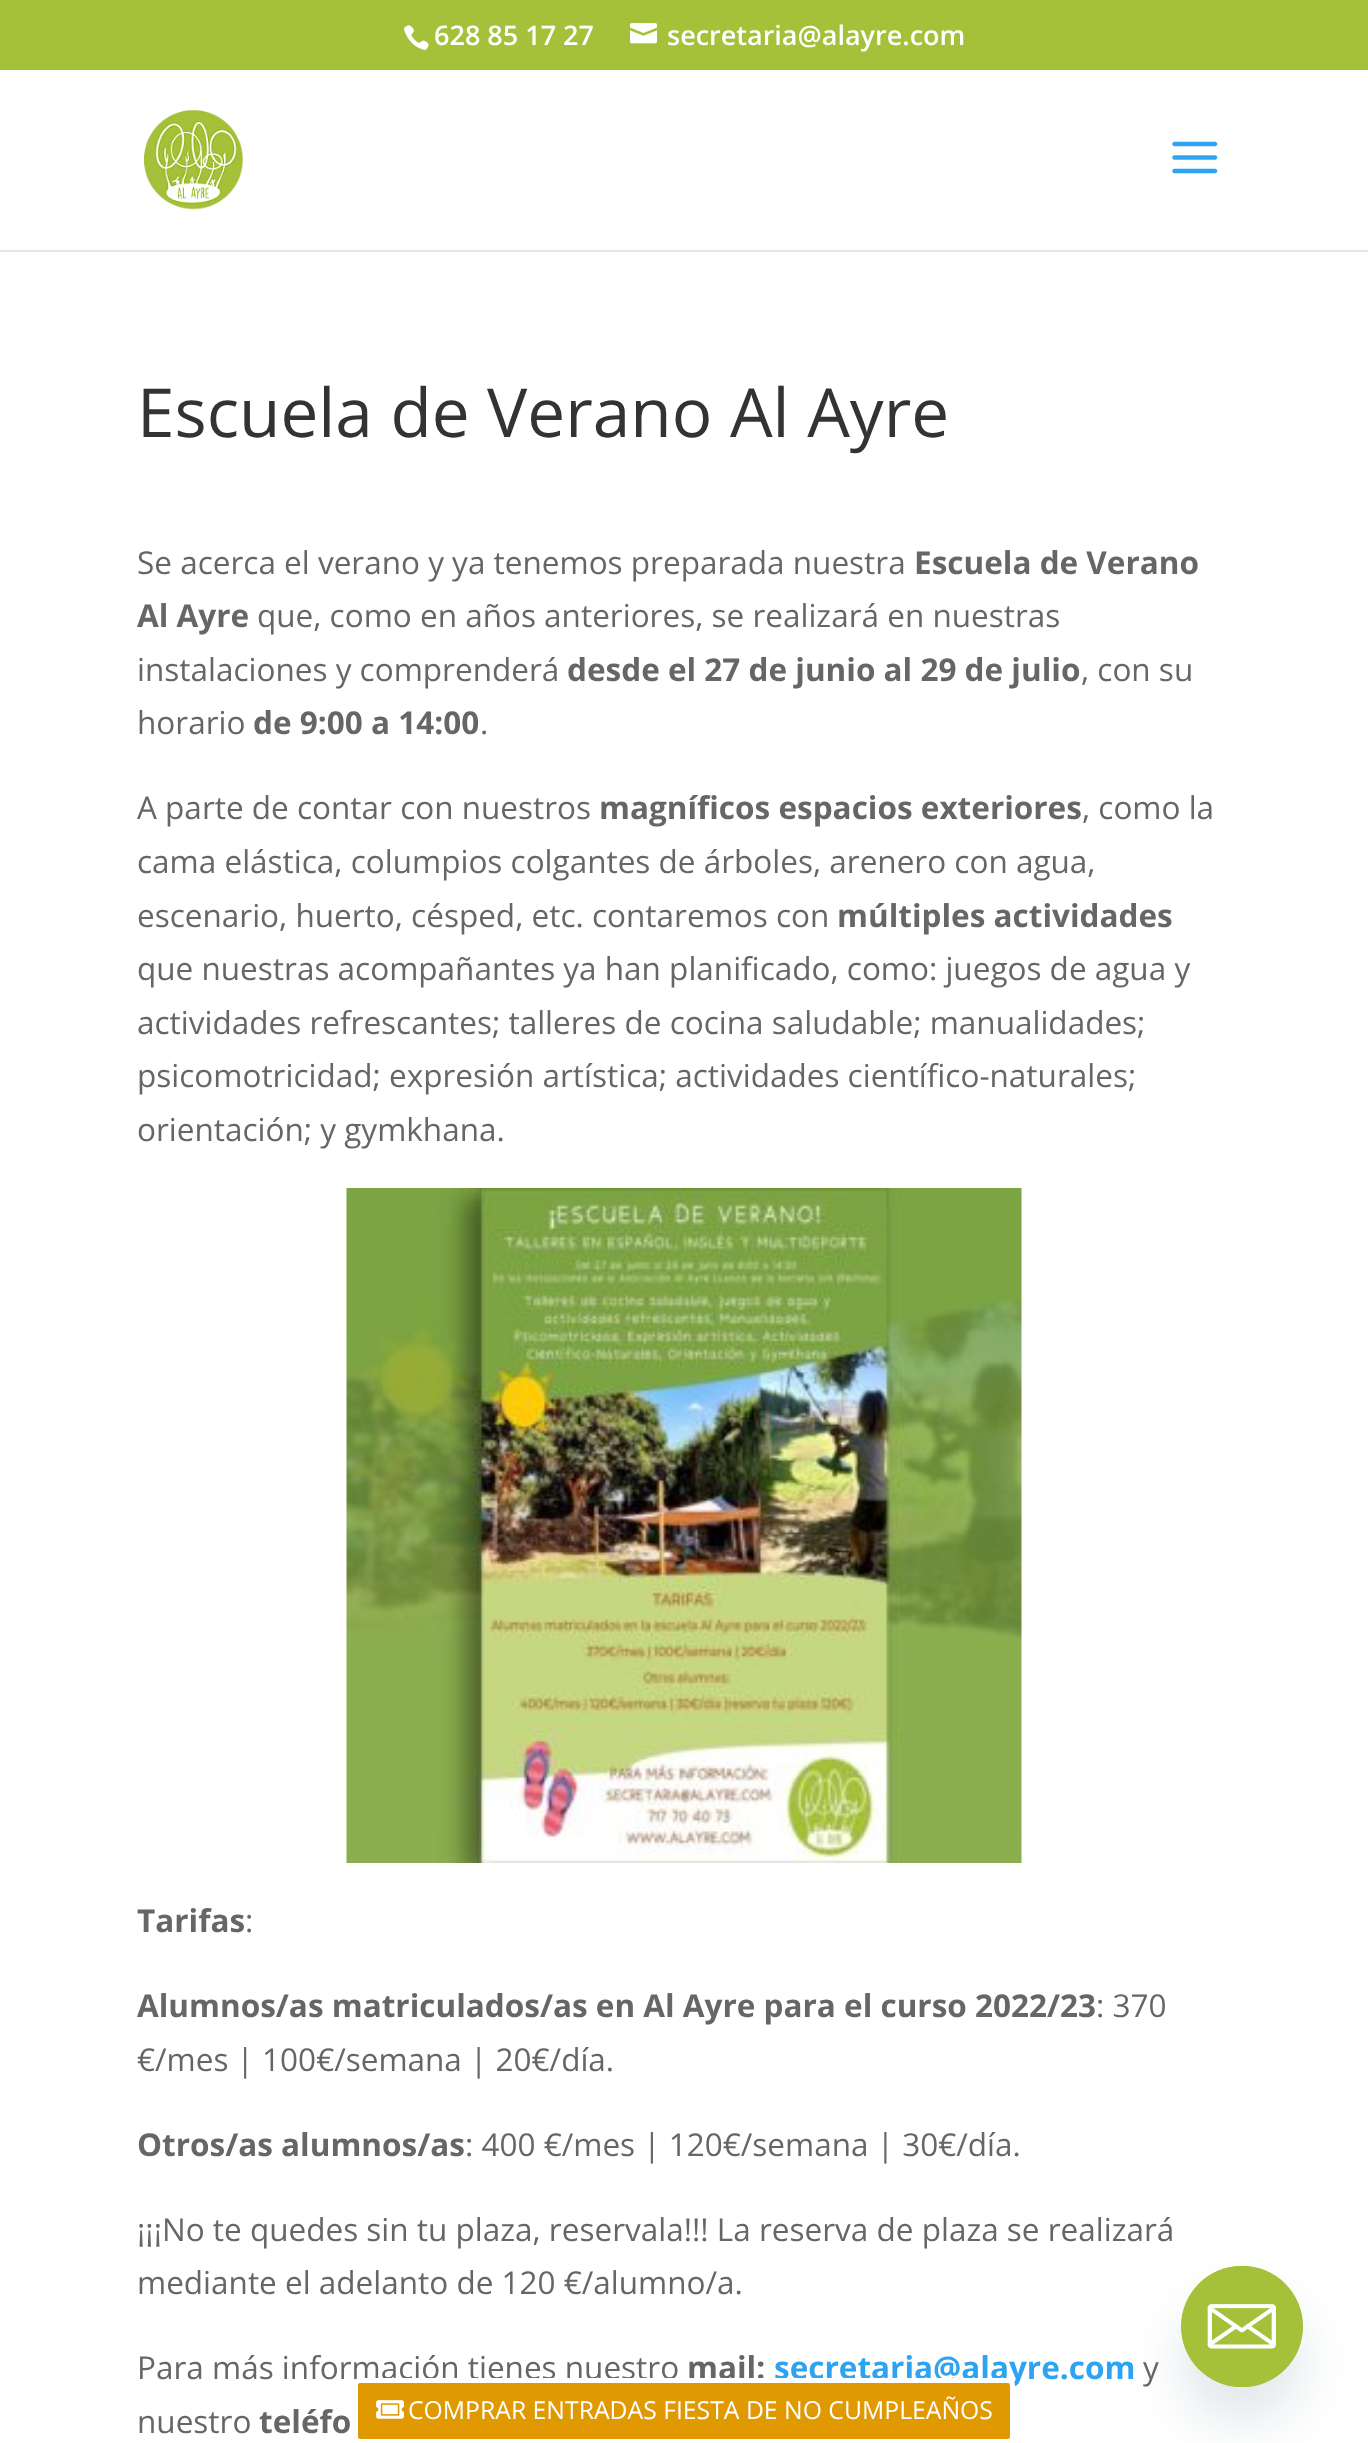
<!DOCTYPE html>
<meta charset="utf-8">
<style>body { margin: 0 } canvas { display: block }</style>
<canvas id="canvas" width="1368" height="2443"></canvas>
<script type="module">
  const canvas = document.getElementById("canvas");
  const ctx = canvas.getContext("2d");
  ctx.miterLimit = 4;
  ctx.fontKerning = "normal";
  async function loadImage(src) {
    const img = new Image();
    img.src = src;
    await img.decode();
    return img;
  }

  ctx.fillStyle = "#ffffff";
  ctx.fillRect(0, 0, 1368, 2443);
  ctx.fillStyle = "#a4c139";
  ctx.fillRect(0, 0, 1368, 70);
  ctx.drawImage(await loadImage("img1.png"), 403, 25, 26, 26);
  ctx.font = "600 27px Open Sans";
  ctx.fillStyle = "#ffffff";
  ctx.fillText("628 85 17 27", 434, 45);
  ctx.drawImage(await loadImage("img2.png"), 630, 23, 27, 21);
  ctx.fillText("secretaria@alayre.com", 667, 45);
  ctx.fillStyle = "#e6e6e6";
  ctx.fillRect(0, 250, 1368, 2);
  ctx.drawImage(await loadImage("img3.png"), 144, 110, 99, 100);
  ctx.drawImage(await loadImage("img4.png"), 1172, 141, 46, 33);
  ctx.font = "67.5px Open Sans";
  ctx.fillStyle = "#333333";
  ctx.fillText("Escuela de Verano Al Ayre", 137, 437);
  ctx.font = "31.5px Open Sans";
  ctx.fillStyle = "#666666";
  ctx.fillText("Se acerca el verano y ya tenemos preparada nuestra", 137, 574);
  ctx.font = "bold 31.5px Open Sans";
  ctx.fillText("Escuela de Verano", 914, 574);
  ctx.fillText("Al Ayre", 137, 627);
  ctx.font = "31.5px Open Sans";
  ctx.fillText("que, como en años anteriores, se realizará en nuestras", 257, 627);
  ctx.fillText("instalaciones y comprenderá", 137, 681);
  ctx.font = "bold 31.5px Open Sans";
  ctx.fillText("desde el 27 de junio al 29 de julio", 567, 681);
  ctx.font = "31.5px Open Sans";
  ctx.fillText(", con su", 1081, 681);
  ctx.fillText("horario", 137, 734);
  ctx.font = "bold 31.5px Open Sans";
  ctx.fillText("de 9:00 a 14:00", 253, 734);
  ctx.font = "31.5px Open Sans";
  ctx.fillText(".", 480, 734);
  ctx.fillText("A parte de contar con nuestros", 137, 819);
  ctx.font = "bold 31.5px Open Sans";
  ctx.fillText("magníficos espacios exteriores", 599, 819);
  ctx.font = "31.5px Open Sans";
  ctx.fillText(", como la", 1082, 819);
  ctx.fillText("cama elástica, columpios colgantes de árboles, arenero con agua,", 137, 873);
  ctx.fillText("escenario, huerto, césped, etc. contaremos con", 137, 927);
  ctx.font = "bold 31.5px Open Sans";
  ctx.fillText("múltiples actividades", 837, 927);
  ctx.font = "31.5px Open Sans";
  ctx.fillText("que nuestras acompañantes ya han planificado, como: juegos de agua y", 137, 980);
  ctx.fillText("actividades refrescantes; talleres de cocina saludable; manualidades;", 137, 1034);
  ctx.fillText("psicomotricidad; expresión artística; actividades científico-naturales;", 137, 1087);
  ctx.fillText("orientación; y gymkhana.", 137, 1141);
  ctx.drawImage(await loadImage("img5.png"), 346, 1188, 676, 675);
  ctx.font = "bold 31.5px Open Sans";
  ctx.fillText("Tarifas", 137, 1932);
  ctx.font = "31.5px Open Sans";
  ctx.fillText(":", 245, 1932);
  ctx.font = "bold 31.5px Open Sans";
  ctx.fillText("Alumnos/as matriculados/as en Al Ayre para el curso 2022/23", 137, 2017);
  ctx.font = "31.5px Open Sans";
  ctx.fillText(": 370", 1096, 2017);
  ctx.fillText("€/mes | 100€/semana | 20€/día.", 137, 2071);
  ctx.font = "bold 31.5px Open Sans";
  ctx.fillText("Otros/as alumnos/as", 137, 2156);
  ctx.font = "31.5px Open Sans";
  ctx.fillText(": 400 €/mes | 120€/semana | 30€/día.", 465, 2156);
  ctx.fillText("¡¡¡No te quedes sin tu plaza, reservala!!! La reserva de plaza se realizará", 137, 2241);
  ctx.fillText("mediante el adelanto de 120 €/alumno/a.", 137, 2294);
  ctx.fillText("Para más información tienes nuestro", 137, 2379);
  ctx.font = "bold 31.5px Open Sans";
  ctx.fillText("mail:", 687, 2379);
  ctx.fillStyle = "#2ea3f2";
  ctx.fillText("secretaria@alayre.com", 774, 2379);
  ctx.font = "31.5px Open Sans";
  ctx.fillStyle = "#666666";
  ctx.fillText("y", 1143, 2379);
  ctx.fillText("nuestro", 137, 2433);
  ctx.font = "bold 31.5px Open Sans";
  ctx.fillText("teléfo", 259, 2433);
  ctx.fillStyle = "#e09900";
  ctx.beginPath();
  ctx.roundRect(355.5, 2380.5, 657, 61, 4.5);
  ctx.fill();
  ctx.strokeStyle = "#ffffff";
  ctx.lineWidth = 5;
  ctx.stroke();
  ctx.drawImage(await loadImage("img6.png"), 376, 2400, 28, 19);
  ctx.font = "24.75px Open Sans";
  ctx.fillStyle = "#ffffff";
  ctx.fillText("COMPRAR ENTRADAS FIESTA DE NO CUMPLEAÑOS", 408, 2419);
  ctx.fillStyle = "rgba(73, 104, 126, 0.16)";
  ctx.filter = "blur(27px)";
  ctx.beginPath();
  ctx.roundRect(1181, 2302, 122, 121, 60.5);
  ctx.fill();
  ctx.filter = "none";
  ctx.fillStyle = "#a4c139";
  ctx.beginPath();
  ctx.roundRect(1181, 2266, 122, 121, 60.5);
  ctx.fill();
  ctx.drawImage(await loadImage("img7.png"), 1181, 2266, 122, 121);
</script>
